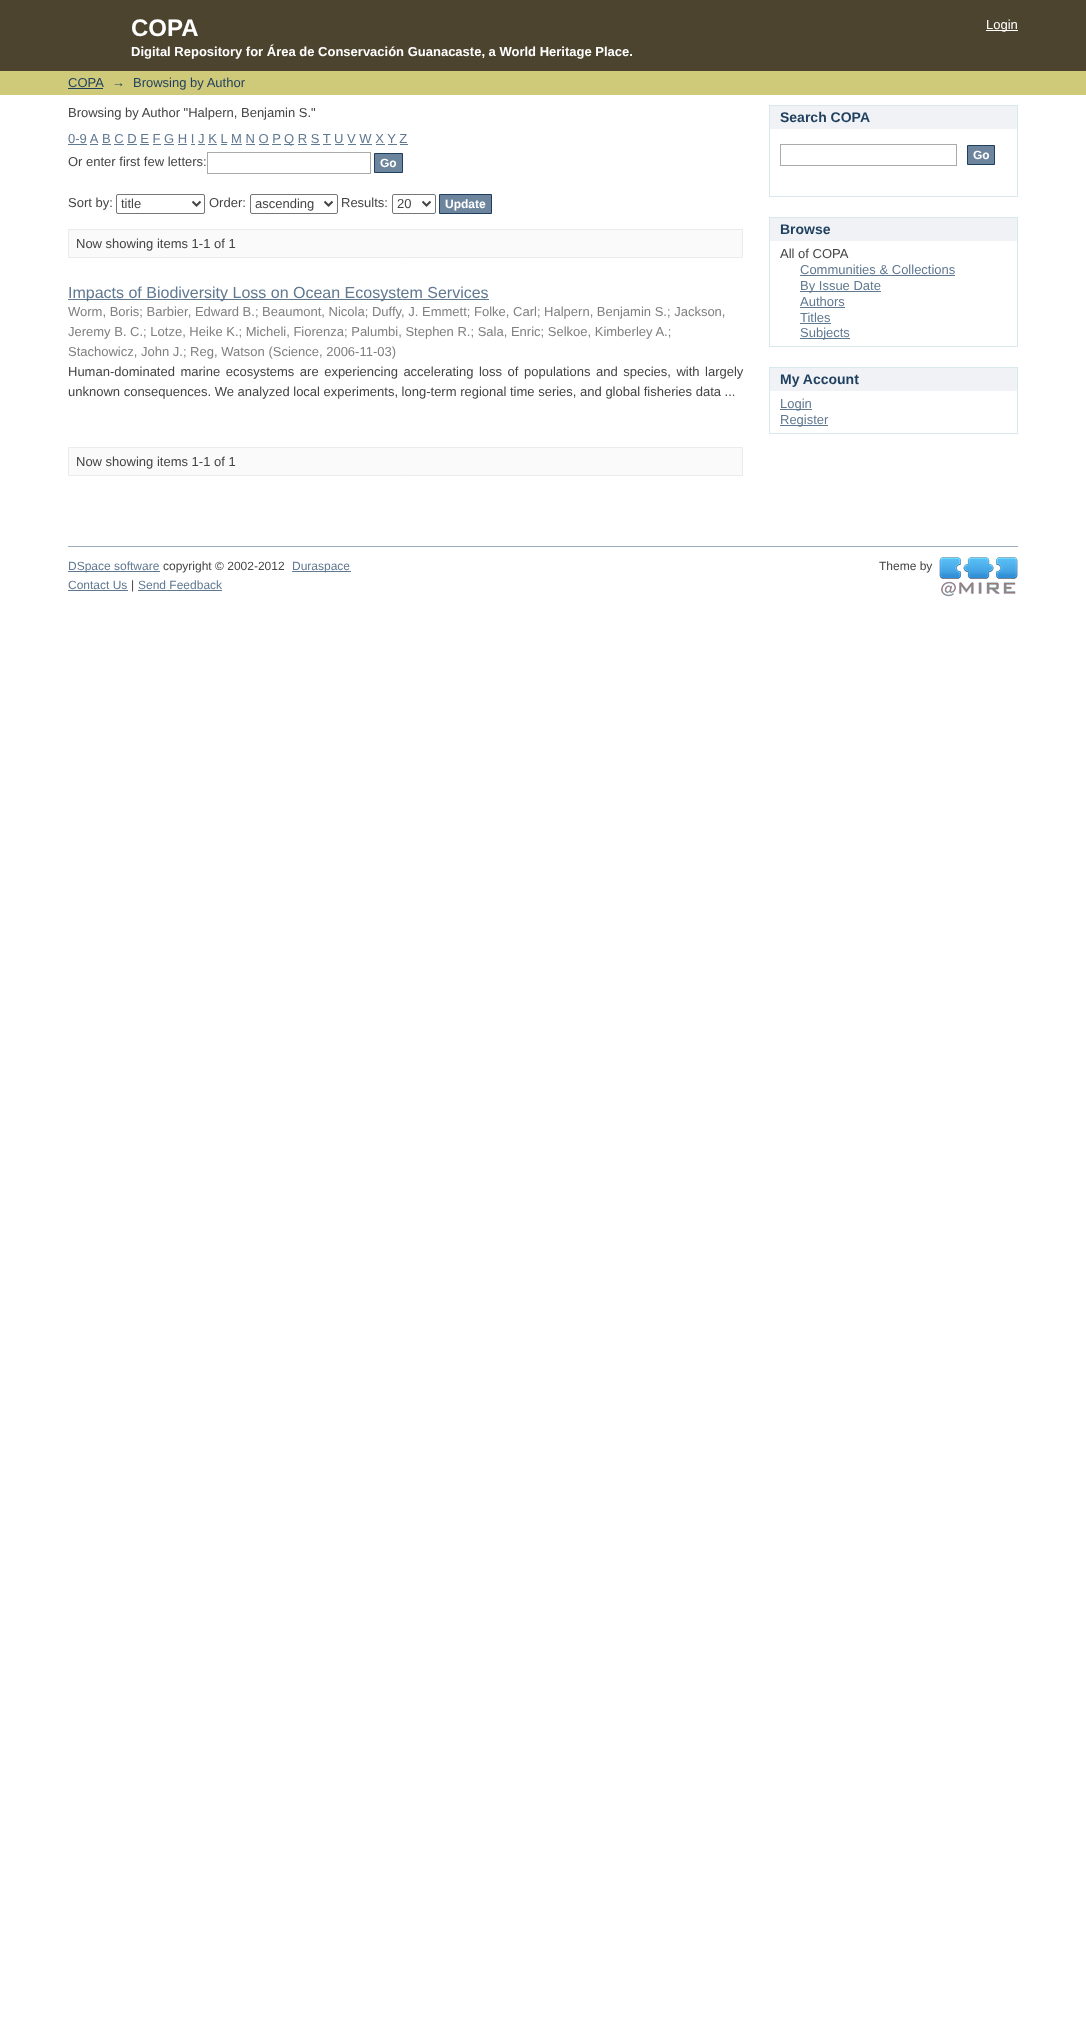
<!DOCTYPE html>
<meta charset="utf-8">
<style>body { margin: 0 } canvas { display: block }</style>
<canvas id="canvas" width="1086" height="2027"></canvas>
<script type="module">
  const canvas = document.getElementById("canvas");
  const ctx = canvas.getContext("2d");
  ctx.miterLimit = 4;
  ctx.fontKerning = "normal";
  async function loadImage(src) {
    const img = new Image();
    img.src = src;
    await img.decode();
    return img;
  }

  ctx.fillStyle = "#ffffff";
  ctx.fillRect(0, 0, 1086, 2027);
  ctx.fillStyle = "#4d4430";
  ctx.fillRect(0, 0, 1086, 71);
  ctx.font = "bold 24px Liberation Sans";
  ctx.fillStyle = "#ffffff";
  ctx.fillText("COPA", 131, 36);
  ctx.fillRect(986, 30, 32, 1);
  ctx.font = "13px Liberation Sans";
  ctx.fillText("Login", 986, 29);
  ctx.font = "bold 13px Liberation Sans";
  ctx.fillText("Digital Repository for Área de Conservación Guanacaste, a World Heritage Place.", 131, 56);
  ctx.fillStyle = "#cfc97a";
  ctx.fillRect(0, 71, 1086, 24);
  ctx.font = "13px Liberation Sans";
  ctx.fillStyle = "#1f3f5e";
  ctx.fillText("COPA", 68, 87);
  ctx.fillRect(68, 88, 35, 1);
  ctx.fillText("→", 112, 87);
  ctx.fillText("Browsing by Author", 133, 87);
  ctx.fillStyle = "#444444";
  ctx.fillText("Browsing by Author \"Halpern, Benjamin S.\"", 68, 117);
  ctx.fillStyle = "#607890";
  ctx.fillText("0-9 A", 68, 143);
  ctx.fillRect(68, 144, 19, 1);
  ctx.fillText("B C D E F G H I J K L", 102, 143);
  ctx.fillRect(102, 144, 9, 1);
  ctx.fillText("M N O P", 231, 143);
  ctx.fillRect(231, 144, 11, 1);
  ctx.fillRect(284, 144, 10, 1);
  ctx.fillText("Q R S T U V W X Y Z", 284, 143);
  ctx.fillRect(90, 144, 8, 1);
  ctx.fillRect(114, 144, 10, 1);
  ctx.fillRect(127, 144, 10, 1);
  ctx.fillRect(140, 144, 9, 1);
  ctx.fillRect(153, 144, 8, 1);
  ctx.fillRect(164, 144, 10, 1);
  ctx.fillRect(178, 144, 9, 1);
  ctx.fillRect(191, 144, 4, 1);
  ctx.fillRect(198, 144, 7, 1);
  ctx.fillRect(208, 144, 9, 1);
  ctx.fillRect(221, 144, 6, 1);
  ctx.fillRect(246, 144, 9, 1);
  ctx.fillRect(259, 144, 10, 1);
  ctx.fillRect(272, 144, 9, 1);
  ctx.fillRect(298, 144, 9, 1);
  ctx.fillRect(311, 144, 9, 1);
  ctx.fillRect(323, 144, 8, 1);
  ctx.fillRect(335, 144, 9, 1);
  ctx.fillRect(348, 144, 8, 1);
  ctx.fillRect(360, 144, 12, 1);
  ctx.fillRect(376, 144, 9, 1);
  ctx.fillRect(388, 144, 9, 1);
  ctx.fillRect(400, 144, 8, 1);
  ctx.fillStyle = "#444444";
  ctx.fillText("Or enter first few letters:", 68, 166);
  ctx.strokeStyle = "#aaaaaa";
  ctx.strokeRect(207.5, 152.5, 163, 21);
  ctx.fillStyle = "#6d859c";
  ctx.beginPath();
  ctx.rect(374.5, 153.5, 28, 19);
  ctx.fill();
  ctx.strokeStyle = "#1f3f5e";
  ctx.stroke();
  ctx.font = "bold 12px Liberation Sans";
  ctx.fillStyle = "#ffffff";
  ctx.fillText("Go", 380, 167);
  ctx.font = "13px Liberation Sans";
  ctx.fillStyle = "#444444";
  ctx.fillText("Sort by:", 68, 207);
  ctx.beginPath();
  ctx.roundRect(116.5, 194.5, 88, 19, 1.5);
  ctx.strokeStyle = "#767676";
  ctx.stroke();
  ctx.beginPath();
  ctx.moveTo(192.5, 201.5);
  ctx.lineTo(196.5, 205.5);
  ctx.lineTo(200.5, 201.5);
  ctx.strokeStyle = "#444444";
  ctx.lineWidth = 2;
  ctx.stroke();
  ctx.fillText("title", 121, 208);
  ctx.fillText("Order:", 209, 207);
  ctx.beginPath();
  ctx.roundRect(250.5, 194.5, 87, 19, 1.5);
  ctx.strokeStyle = "#767676";
  ctx.lineWidth = 1;
  ctx.stroke();
  ctx.beginPath();
  ctx.moveTo(324.5, 201.5);
  ctx.lineTo(328.5, 205.5);
  ctx.lineTo(332.5, 201.5);
  ctx.strokeStyle = "#444444";
  ctx.lineWidth = 2;
  ctx.stroke();
  ctx.fillText("ascending", 255, 208);
  ctx.fillText("Results:", 341, 207);
  ctx.beginPath();
  ctx.roundRect(392.5, 194.5, 43, 19, 1.5);
  ctx.strokeStyle = "#767676";
  ctx.lineWidth = 1;
  ctx.stroke();
  ctx.beginPath();
  ctx.moveTo(422.5, 201.5);
  ctx.lineTo(426.5, 205.5);
  ctx.lineTo(430.5, 201.5);
  ctx.strokeStyle = "#444444";
  ctx.lineWidth = 2;
  ctx.stroke();
  ctx.fillText("20", 397, 208);
  ctx.fillStyle = "#6d859c";
  ctx.beginPath();
  ctx.rect(439.5, 194.5, 52, 19);
  ctx.fill();
  ctx.strokeStyle = "#1f3f5e";
  ctx.lineWidth = 1;
  ctx.stroke();
  ctx.font = "bold 12px Liberation Sans";
  ctx.fillStyle = "#ffffff";
  ctx.fillText("Update", 445, 208);
  ctx.fillStyle = "#fafafa";
  ctx.beginPath();
  ctx.rect(68.5, 229.5, 674, 28);
  ctx.fill();
  ctx.strokeStyle = "#ebebeb";
  ctx.stroke();
  ctx.font = "13px Liberation Sans";
  ctx.fillStyle = "#444444";
  ctx.fillText("Now showing items 1-1 of 1", 76, 248);
  ctx.fillStyle = "#607890";
  ctx.fillRect(68, 299, 421, 1);
  ctx.font = "16px Liberation Sans";
  ctx.fillText("Impacts of Biodiversity Loss on Ocean Ecosystem Services", 68, 298);
  ctx.font = "13px Liberation Sans";
  ctx.fillStyle = "#808080";
  ctx.fillText("Worm, Boris; Barbier, Edward B.; Beaumont, Nicola; Duffy, J. Emmett; Folke, Carl; Halpern, Benjamin S.; Jackson,", 68, 316);
  ctx.fillText("Jeremy B. C.; Lotze, Heike K.; Micheli, Fiorenza; Palumbi, Stephen R.; Sala, Enric; Selkoe, Kimberley A.;", 68, 336);
  ctx.fillText("Stachowicz, John J.; Reg, Watson (Science, 2006-11-03)", 68, 356);
  ctx.wordSpacing = "1.9px";
  ctx.fillStyle = "#444444";
  ctx.fillText("Human-dominated marine ecosystems are experiencing accelerating loss of populations and species, with largely", 68, 376);
  ctx.wordSpacing = "0px";
  ctx.fillText("unknown consequences. We analyzed local experiments, long-term regional time series, and global fisheries data ...", 68, 396);
  ctx.fillStyle = "#fafafa";
  ctx.beginPath();
  ctx.rect(68.5, 447.5, 674, 28);
  ctx.fill();
  ctx.stroke();
  ctx.fillStyle = "#444444";
  ctx.fillText("Now showing items 1-1 of 1", 76, 466);
  ctx.fillStyle = "#f0f2f5";
  ctx.fillRect(770, 106, 247, 23);
  ctx.fillStyle = "#d8e8eb";
  ctx.fillRect(769, 105, 249, 1);
  ctx.fillRect(1017, 105, 1, 92);
  ctx.fillRect(769, 105, 1, 24);
  ctx.font = "bold 14px Liberation Sans";
  ctx.fillStyle = "#1f3f5e";
  ctx.fillText("Search COPA", 780, 122);
  ctx.fillStyle = "#d8e8eb";
  ctx.fillRect(769, 196, 249, 1);
  ctx.fillRect(769, 129, 1, 68);
  ctx.strokeStyle = "#aaaaaa";
  ctx.strokeRect(780.5, 144.5, 176, 21);
  ctx.fillStyle = "#6d859c";
  ctx.beginPath();
  ctx.rect(967.5, 145.5, 27, 19);
  ctx.fill();
  ctx.strokeStyle = "#1f3f5e";
  ctx.stroke();
  ctx.font = "bold 12px Liberation Sans";
  ctx.fillStyle = "#ffffff";
  ctx.fillText("Go", 973, 159);
  ctx.fillStyle = "#f0f2f5";
  ctx.fillRect(770, 218, 247, 23);
  ctx.fillStyle = "#d8e8eb";
  ctx.fillRect(769, 217, 249, 1);
  ctx.fillRect(1017, 217, 1, 130);
  ctx.fillRect(769, 217, 1, 24);
  ctx.font = "bold 14px Liberation Sans";
  ctx.fillStyle = "#1f3f5e";
  ctx.fillText("Browse", 780, 234);
  ctx.fillStyle = "#d8e8eb";
  ctx.fillRect(769, 346, 249, 1);
  ctx.fillRect(769, 241, 1, 106);
  ctx.font = "13px Liberation Sans";
  ctx.fillStyle = "#444444";
  ctx.fillText("All of COPA", 780, 258);
  ctx.fillStyle = "#607890";
  ctx.fillText("Communities & Collections", 800, 274);
  ctx.fillRect(800, 275, 155, 1);
  ctx.fillRect(800, 291, 81, 1);
  ctx.fillText("By Issue Date", 800, 290);
  ctx.fillText("Authors", 800, 306);
  ctx.fillRect(800, 307, 45, 1);
  ctx.fillText("Titles", 800, 322);
  ctx.fillRect(800, 323, 31, 1);
  ctx.fillRect(800, 338, 50, 1);
  ctx.fillText("Subjects", 800, 337);
  ctx.fillStyle = "#f0f2f5";
  ctx.fillRect(770, 368, 247, 23);
  ctx.fillStyle = "#d8e8eb";
  ctx.fillRect(769, 367, 249, 1);
  ctx.fillRect(1017, 367, 1, 67);
  ctx.fillRect(769, 367, 1, 24);
  ctx.font = "bold 14px Liberation Sans";
  ctx.fillStyle = "#1f3f5e";
  ctx.fillText("My Account", 780, 384);
  ctx.fillStyle = "#d8e8eb";
  ctx.fillRect(769, 433, 249, 1);
  ctx.fillRect(769, 391, 1, 43);
  ctx.fillStyle = "#607890";
  ctx.fillRect(780, 409, 32, 1);
  ctx.font = "13px Liberation Sans";
  ctx.fillText("Login", 780, 408);
  ctx.fillRect(780, 425, 48, 1);
  ctx.fillText("Register", 780, 424);
  ctx.fillStyle = "#9cacba";
  ctx.fillRect(68, 546, 950, 1);
  ctx.fillStyle = "#607890";
  ctx.fillRect(68, 571, 92, 1);
  ctx.font = "12px Liberation Sans";
  ctx.fillText("DSpace software", 68, 570);
  ctx.fillStyle = "#444444";
  ctx.fillText("copyright © 2002-2012", 163, 570);
  ctx.fillStyle = "#607890";
  ctx.fillRect(292, 571, 59, 1);
  ctx.fillText("Duraspace", 292, 570);
  ctx.fillStyle = "#444444";
  ctx.fillText("Theme by", 879, 570);
  ctx.drawImage(await loadImage("img1.png"), 939, 557, 79, 40);
  ctx.fillStyle = "#607890";
  ctx.fillText("Contact Us", 68, 589);
  ctx.fillRect(68, 590, 60, 1);
  ctx.fillStyle = "#444444";
  ctx.fillText("|", 131, 589);
  ctx.fillStyle = "#607890";
  ctx.fillText("Send Feedback", 138, 589);
  ctx.fillRect(138, 590, 84, 1);
</script>
